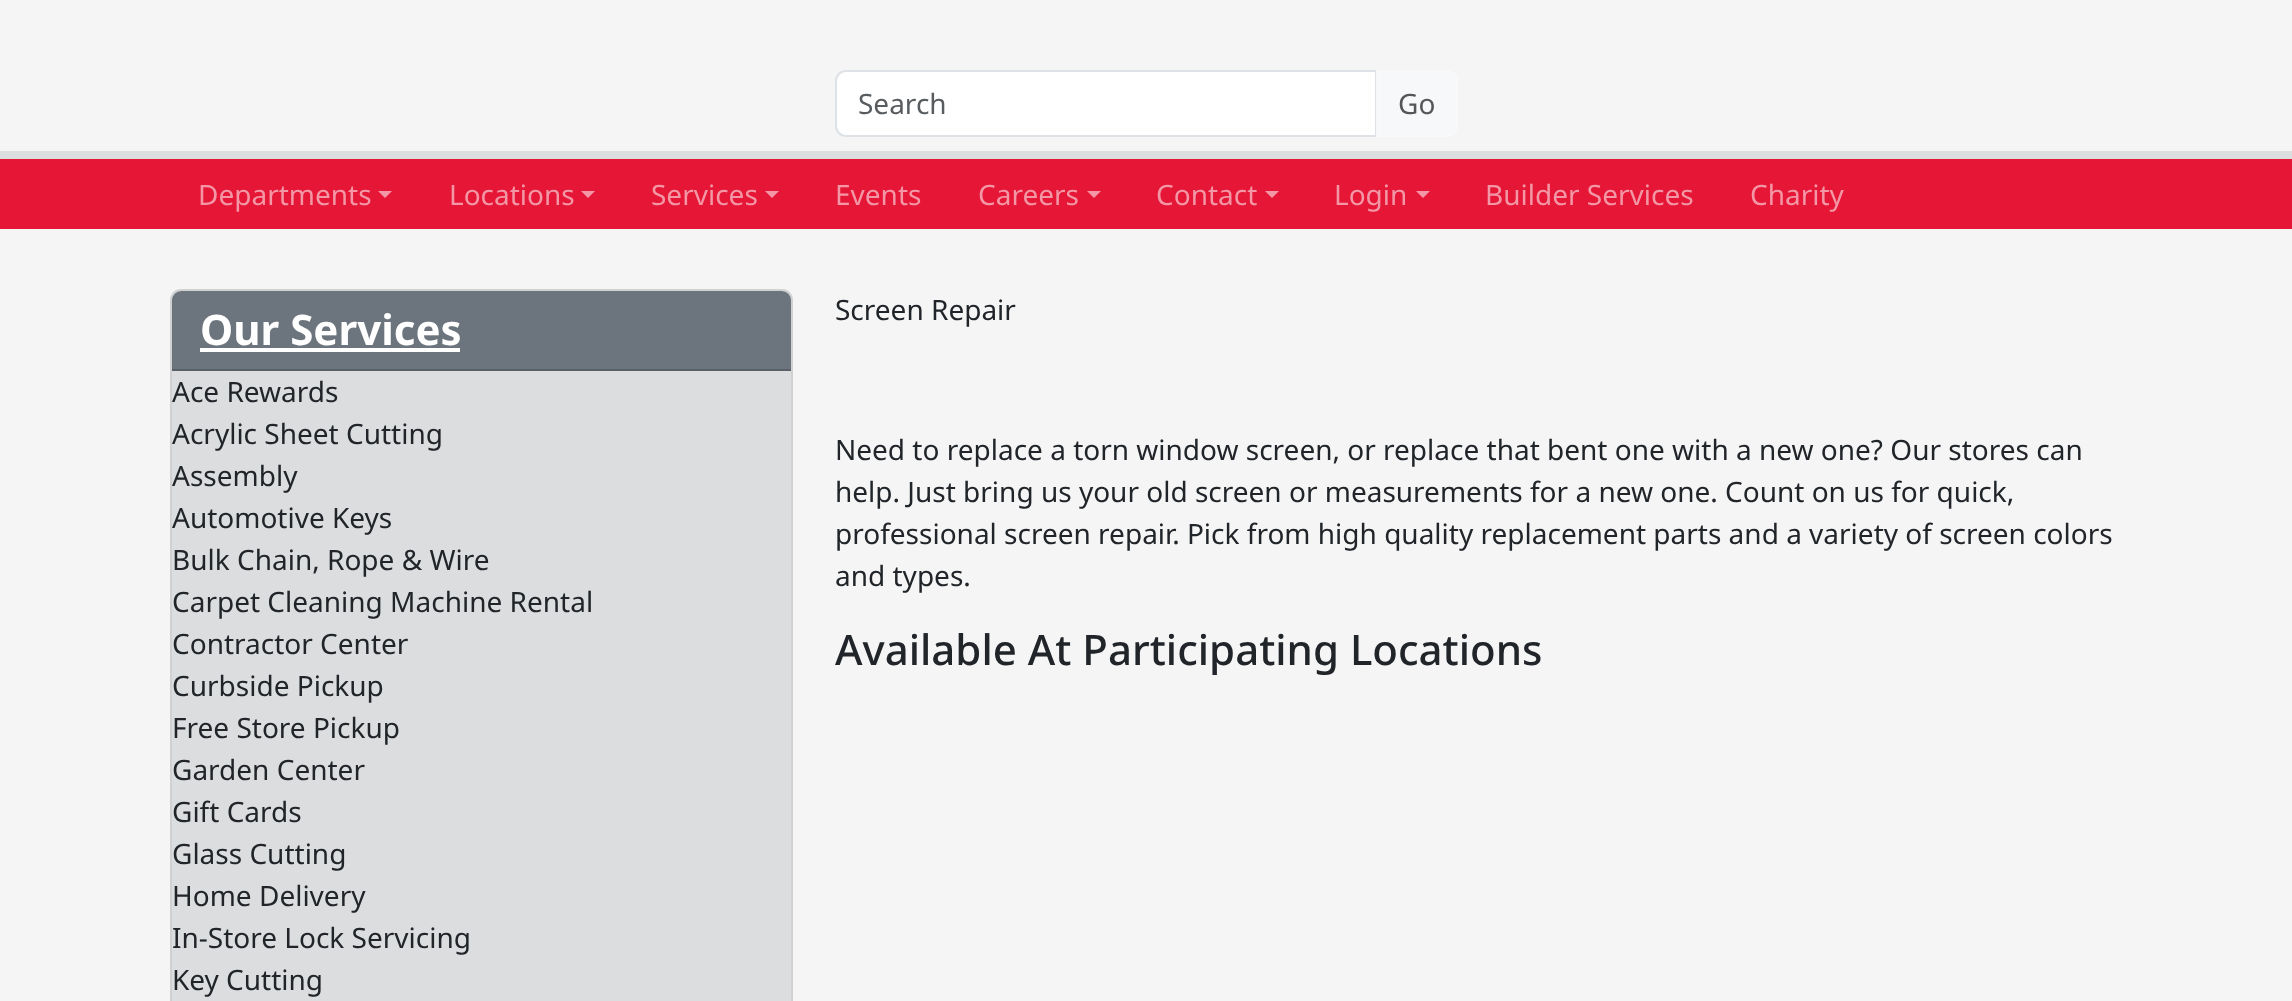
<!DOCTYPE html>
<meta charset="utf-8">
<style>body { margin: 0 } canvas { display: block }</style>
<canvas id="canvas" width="2292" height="1001"></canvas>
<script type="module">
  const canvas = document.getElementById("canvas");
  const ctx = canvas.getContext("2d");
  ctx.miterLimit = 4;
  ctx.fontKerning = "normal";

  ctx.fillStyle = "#f5f5f5";
  ctx.fillRect(0, 0, 2292, 1001);
  ctx.fillStyle = "#ffffff";
  ctx.beginPath();
  ctx.roundRect(836, 71, 540, 65, [10, 0, 0, 10]);
  ctx.fill();
  ctx.strokeStyle = "#dee2e6";
  ctx.lineWidth = 2;
  ctx.stroke();
  ctx.font = "28px Noto Sans";
  ctx.fillStyle = "#595c5f";
  ctx.fillText("Search", 858, 114);
  ctx.fillStyle = "rgba(248, 249, 250, 0.65)";
  ctx.beginPath();
  ctx.roundRect(1376, 70, 82, 67, [0, 11, 11, 0]);
  ctx.fill();
  ctx.beginPath();
  ctx.roundRect(1377, 71, 80, 65, [0, 10, 10, 0]);
  ctx.strokeStyle = "rgba(248, 249, 250, 0.65)";
  ctx.stroke();
  ctx.fillStyle = "#565656";
  ctx.fillText("Go", 1398, 114);
  ctx.fillStyle = "#e51636";
  ctx.fillRect(0, 159, 2292, 70);
  ctx.fillStyle = "#dcddde";
  ctx.fillRect(0, 151, 2292, 8);
  ctx.fillStyle = "#f396a5";
  ctx.fillText("Departments", 198, 205);
  ctx.beginPath();
  ctx.moveTo(378, 191);
  ctx.lineTo(392, 191);
  ctx.lineTo(385, 198);
  ctx.closePath();
  ctx.fill();
  ctx.fillText("Locations", 449, 205);
  ctx.beginPath();
  ctx.moveTo(581, 191);
  ctx.lineTo(595, 191);
  ctx.lineTo(588, 198);
  ctx.closePath();
  ctx.fill();
  ctx.fillText("Services", 651, 205);
  ctx.beginPath();
  ctx.moveTo(765, 191);
  ctx.lineTo(779, 191);
  ctx.lineTo(772, 198);
  ctx.closePath();
  ctx.fill();
  ctx.fillText("Events", 835, 205);
  ctx.fillText("Careers", 978, 205);
  ctx.beginPath();
  ctx.moveTo(1087, 191);
  ctx.lineTo(1101, 191);
  ctx.lineTo(1094, 198);
  ctx.closePath();
  ctx.fill();
  ctx.fillText("Contact", 1156, 205);
  ctx.beginPath();
  ctx.moveTo(1265, 191);
  ctx.lineTo(1279, 191);
  ctx.lineTo(1272, 198);
  ctx.closePath();
  ctx.fill();
  ctx.fillText("Login", 1334, 205);
  ctx.beginPath();
  ctx.moveTo(1416, 191);
  ctx.lineTo(1430, 191);
  ctx.lineTo(1423, 198);
  ctx.closePath();
  ctx.fill();
  ctx.fillText("Builder Services", 1485, 205);
  ctx.fillText("Charity", 1750, 205);
  ctx.fillStyle = "#ffffff";
  ctx.beginPath();
  ctx.roundRect(170, 289, 623, 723, 11);
  ctx.fill();
  ctx.beginPath();
  ctx.roundRect(171, 290, 621, 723, 10);
  ctx.strokeStyle = "rgba(0, 0, 0, 0.18)";
  ctx.stroke();
  ctx.fillStyle = "#6c757d";
  ctx.beginPath();
  ctx.roundRect(172, 291, 619, 80, [9, 9, 0, 0]);
  ctx.fill();
  ctx.fillStyle = "#596067";
  ctx.fillRect(172, 369, 619, 2);
  ctx.font = "bold 42px Noto Sans";
  ctx.fillStyle = "#ffffff";
  ctx.fillText("Our Services", 200, 345);
  ctx.fillRect(200, 348, 260, 4);
  ctx.fillStyle = "#dcddde";
  ctx.fillRect(172, 371, 619, 630);
  ctx.font = "28px Noto Sans";
  ctx.fillStyle = "#212529";
  ctx.fillText("Ace Rewards", 172, 402);
  ctx.fillText("Acrylic Sheet Cutting", 172, 444);
  ctx.fillText("Assembly", 172, 486);
  ctx.fillText("Automotive Keys", 172, 528);
  ctx.fillText("Bulk Chain, Rope & Wire", 172, 570);
  ctx.fillText("Carpet Cleaning Machine Rental", 172, 612);
  ctx.fillText("Contractor Center", 172, 654);
  ctx.fillText("Curbside Pickup", 172, 696);
  ctx.fillText("Free Store Pickup", 172, 738);
  ctx.fillText("Garden Center", 172, 780);
  ctx.fillText("Gift Cards", 172, 822);
  ctx.fillText("Glass Cutting", 172, 864);
  ctx.fillText("Home Delivery", 172, 906);
  ctx.fillText("In-Store Lock Servicing", 172, 948);
  ctx.fillText("Key Cutting", 172, 990);
  ctx.fillText("Screen Repair", 835, 320);
  ctx.fillText("Need to replace a torn window screen, or replace that bent one with a new one? Our stores can", 835, 460);
  ctx.fillText("help. Just bring us your old screen or measurements for a new one. Count on us for quick,", 835, 502);
  ctx.fillText("professional screen repair. Pick from high quality replacement parts and a variety of screen colors", 835, 544);
  ctx.fillText("and types.", 835, 586);
  ctx.font = "500 42px Noto Sans";
  ctx.fillText("Available At Participating Locations", 835, 665);
</script>
